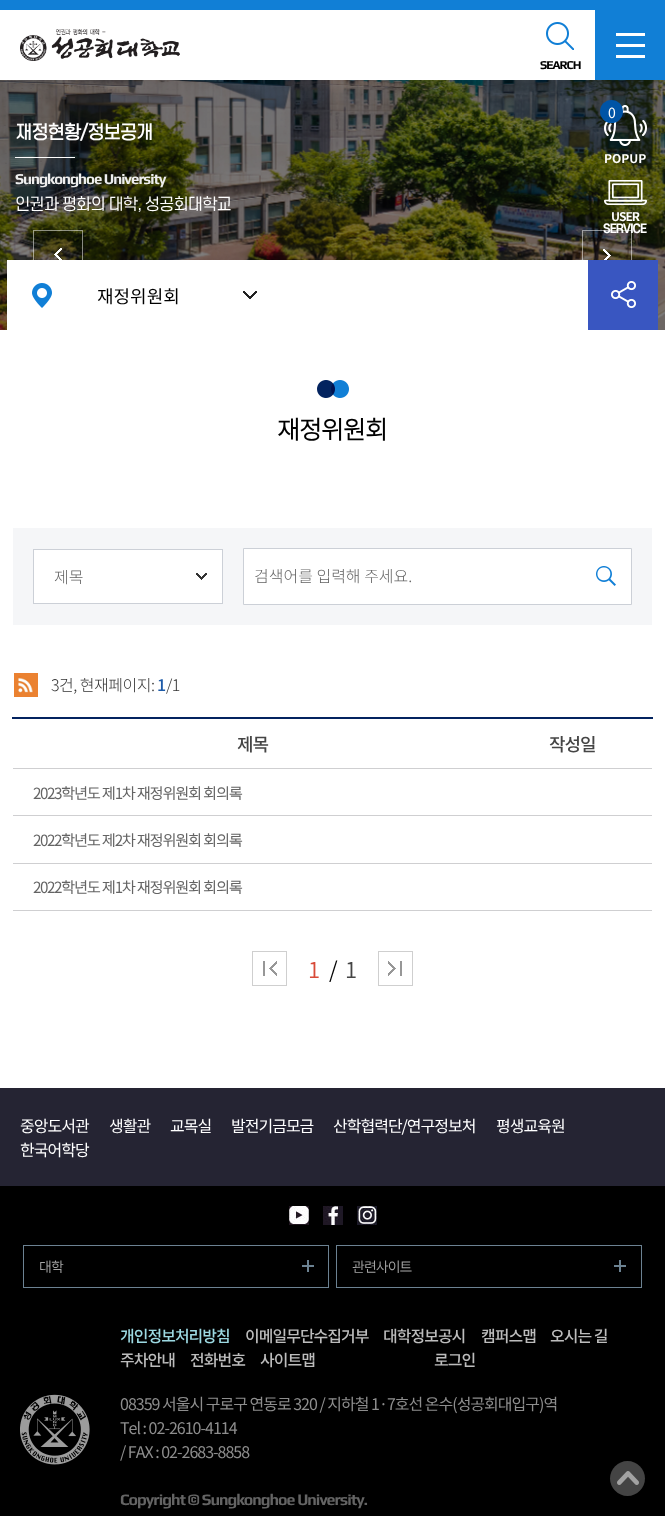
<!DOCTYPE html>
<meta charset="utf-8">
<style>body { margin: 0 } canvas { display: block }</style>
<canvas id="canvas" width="665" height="1516"></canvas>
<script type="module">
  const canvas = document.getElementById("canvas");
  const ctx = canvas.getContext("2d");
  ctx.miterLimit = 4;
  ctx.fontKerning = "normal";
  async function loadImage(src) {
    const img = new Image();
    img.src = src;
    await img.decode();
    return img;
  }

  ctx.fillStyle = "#ffffff";
  ctx.fillRect(0, 0, 665, 1516);
  ctx.fillStyle = "#117fd6";
  ctx.fillRect(0, 0, 665, 10);
  ctx.drawImage(await loadImage("img1.png"), 20, 29, 160, 32);
  ctx.drawImage(await loadImage("img2.png"), 546, 22, 28, 28);
  ctx.letterSpacing = "-1px";
  ctx.font = "bold 12px Play";
  ctx.fillStyle = "#000000";
  ctx.fillText("SEARCH", 540, 69);
  ctx.fillStyle = "#117fd6";
  ctx.fillRect(595, 10, 70, 70);
  ctx.drawImage(await loadImage("img3.png"), 616, 33, 29, 25);
  ctx.drawImage(await loadImage("img4.png"), 0, 80, 665, 250);
  ctx.font = "bold 18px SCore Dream";
  ctx.fillStyle = "#ffffff";
  ctx.fillText("재정현황/정보공개", 15, 139);
  ctx.fillRect(15, 157, 60, 1);
  ctx.font = "bold 15px Play";
  ctx.fillStyle = "#eeeeee";
  ctx.fillText("Sungkonghoe University", 15, 184);
  ctx.font = "16px SCore Dream";
  ctx.fillStyle = "#ffffff";
  ctx.fillText("인권과 평화의 대학, 성공회대학교", 15, 210);
  ctx.drawImage(await loadImage("img5.png"), 54, 248, 8, 12);
  ctx.strokeStyle = "rgba(255, 255, 255, 0.5)";
  ctx.strokeRect(33.5, 230.5, 49, 49);
  ctx.drawImage(await loadImage("img6.png"), 603, 249, 8, 11);
  ctx.strokeRect(582.5, 230.5, 49, 49);
  ctx.drawImage(await loadImage("img7.png"), 604, 105, 43, 41);
  ctx.fillStyle = "#0054a6";
  ctx.beginPath();
  ctx.arc(611.5, 111.5, 11.5, 0, Math.PI * 2);
  ctx.fill();
  ctx.letterSpacing = "0px";
  ctx.font = "14px Noto Sans KR";
  ctx.fillStyle = "#ffffff";
  ctx.fillText("0", 608, 118);
  ctx.font = "bold 12px 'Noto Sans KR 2'";
  ctx.fillText("POPUP", 604, 163);
  ctx.drawImage(await loadImage("img8.png"), 604, 180, 43, 25);
  ctx.letterSpacing = "-1px";
  ctx.fillText("USER", 611, 221);
  ctx.font = "bold 12px 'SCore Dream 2'";
  ctx.fillText("SERVICE", 603, 233);
  ctx.fillRect(7, 260, 581, 70);
  ctx.drawImage(await loadImage("img9.png"), 32, 283, 20, 25);
  ctx.letterSpacing = "0px";
  ctx.font = "18px Noto Sans KR";
  ctx.fillStyle = "#000000";
  ctx.fillText("재정위원회", 97, 303);
  ctx.drawImage(await loadImage("img10.png"), 243, 291, 14, 8);
  ctx.fillStyle = "#3956c1";
  ctx.fillRect(588, 260, 70, 70);
  ctx.drawImage(await loadImage("img11.png"), 611, 281, 25, 27);
  ctx.drawImage(await loadImage("img12.png"), 317, 380, 32, 18);
  ctx.letterSpacing = "-1px";
  ctx.font = "bold 25px Noto Sans KR";
  ctx.fillStyle = "#000000";
  ctx.fillText("재정위원회", 277, 439);
  ctx.fillStyle = "#f5f6f8";
  ctx.fillRect(13, 528, 639, 97);
  ctx.fillStyle = "#ffffff";
  ctx.fillRect(34, 550, 188, 53);
  ctx.drawImage(await loadImage("img13.png"), 196, 573, 11, 7);
  ctx.strokeStyle = "#ccd0d7";
  ctx.strokeRect(33.5, 549.5, 189, 54);
  ctx.letterSpacing = "0px";
  ctx.font = "300 16px Noto Sans KR";
  ctx.fillStyle = "#646464";
  ctx.fillText("제목", 54, 583);
  ctx.fillStyle = "#ffffff";
  ctx.beginPath();
  ctx.rect(243.5, 548.5, 388, 56);
  ctx.fill();
  ctx.stroke();
  ctx.fillStyle = "#646464";
  ctx.fillText("검색어를 입력해 주세요.", 254, 582);
  ctx.drawImage(await loadImage("img14.png"), 596, 566, 20, 20);
  ctx.drawImage(await loadImage("img15.png"), 14, 673, 24, 24);
  ctx.letterSpacing = "-0.5px";
  ctx.fillStyle = "#333333";
  ctx.fillText("3건, 현재페이지:", 51, 691);
  ctx.font = "500 16px Noto Sans KR";
  ctx.fillStyle = "#1e5ba8";
  ctx.fillText("1", 157, 691);
  ctx.font = "300 16px Noto Sans KR";
  ctx.fillStyle = "#333333";
  ctx.fillText("/1", 166, 691);
  ctx.letterSpacing = "-1px";
  ctx.font = "500 18px Noto Sans KR";
  ctx.fillStyle = "#454545";
  ctx.fillText("제목", 237, 751);
  ctx.fillStyle = "#cfcfd1";
  ctx.fillRect(13, 768, 639, 1);
  ctx.fillStyle = "#03235f";
  ctx.fillRect(12, 717, 641, 2);
  ctx.fillStyle = "#454545";
  ctx.fillText("작성일", 549, 751);
  ctx.font = "bold 15px Noto Sans KR";
  ctx.fillStyle = "#646464";
  ctx.fillText("2023학년도 제1차 재정위원회 회의록", 33, 799);
  ctx.fillStyle = "#cfcfd1";
  ctx.fillRect(13, 815, 639, 1);
  ctx.fillStyle = "#646464";
  ctx.fillText("2022학년도 제2차 재정위원회 회의록", 33, 846);
  ctx.fillStyle = "#cfcfd1";
  ctx.fillRect(13, 863, 639, 1);
  ctx.fillStyle = "#646464";
  ctx.fillText("2022학년도 제1차 재정위원회 회의록", 33, 893);
  ctx.fillStyle = "#cfcfd1";
  ctx.fillRect(13, 910, 639, 1);
  ctx.drawImage(await loadImage("img16.png"), 252, 951, 35, 35);
  ctx.font = "300 22px 'Noto Sans KR 2'";
  ctx.fillStyle = "#d84a38";
  ctx.fillText("1", 308, 978);
  ctx.fillStyle = "#000000";
  ctx.fillText("/", 329, 978);
  ctx.fillStyle = "#454545";
  ctx.fillText("1", 345, 978);
  ctx.drawImage(await loadImage("img17.png"), 378, 951, 35, 35);
  ctx.fillStyle = "#000000";
  ctx.fillRect(0, 1186, 665, 330);
  ctx.fillStyle = "#252433";
  ctx.fillRect(0, 1088, 665, 98);
  ctx.font = "16px Noto Sans KR";
  ctx.fillStyle = "#ffffff";
  ctx.fillText("중앙도서관", 20, 1132);
  ctx.fillText("생활관", 109, 1132);
  ctx.fillText("교목실", 170, 1132);
  ctx.fillText("발전기금모금", 231, 1132);
  ctx.fillText("산학협력단/연구정보처", 333, 1132);
  ctx.fillText("평생교육원", 496, 1132);
  ctx.fillText("한국어학당", 20, 1156);
  ctx.drawImage(await loadImage("img18.png"), 289, 1206, 20, 19);
  ctx.drawImage(await loadImage("img19.png"), 323, 1206, 20, 19);
  ctx.drawImage(await loadImage("img20.png"), 357, 1206, 20, 19);
  ctx.drawImage(await loadImage("img21.png"), 302, 1260, 12, 12);
  ctx.strokeStyle = "#6c8292";
  ctx.strokeRect(23.5, 1245.5, 305, 42);
  ctx.font = "300 14px 'Noto Sans KR 2'";
  ctx.fillStyle = "#a5a5a5";
  ctx.fillText("대학", 39, 1272);
  ctx.drawImage(await loadImage("img21.png"), 614, 1260, 12, 12);
  ctx.strokeRect(336.5, 1245.5, 305, 42);
  ctx.fillText("관련사이트", 352, 1272);
  ctx.drawImage(await loadImage("img22.png"), 20, 1394, 70, 71);
  ctx.font = "500 16px Noto Sans KR";
  ctx.fillStyle = "#9cd9e2";
  ctx.fillText("개인정보처리방침", 120, 1342);
  ctx.fillStyle = "#bcbcbc";
  ctx.fillText("이메일무단수집거부", 245, 1342);
  ctx.fillText("대학정보공시", 383, 1342);
  ctx.fillText("캠퍼스맵", 481, 1342);
  ctx.fillText("오시는 길", 550, 1342);
  ctx.fillText("주차안내", 120, 1366);
  ctx.fillText("전화번호", 190, 1366);
  ctx.fillText("사이트맵", 260, 1366);
  ctx.fillText("로그인", 434, 1366);
  ctx.font = "16px Noto Sans KR";
  ctx.fillStyle = "#8d8d8d";
  ctx.fillText("08359 서울시 구로구 연동로 320 / 지하철 1·7호선 온수(성공회대입구)역", 120, 1410);
  ctx.fillText("Tel : 02-2610-4114", 120, 1434);
  ctx.fillText("/ FAX : 02-2683-8858", 120, 1458);
  ctx.font = "bold 16px Play";
  ctx.fillStyle = "#646464";
  ctx.fillText("Copyright © Sungkonghoe University.", 120, 1505);
  ctx.fillStyle = "#444444";
  ctx.beginPath();
  ctx.moveTo(610, 1478.5);
  ctx.bezierCurveTo(610, 1469, 618, 1461, 627.5, 1461);
  ctx.bezierCurveTo(637, 1461, 645, 1469, 645, 1478.5);
  ctx.bezierCurveTo(645, 1488, 637, 1496, 627.5, 1496);
  ctx.bezierCurveTo(618, 1496, 610, 1488, 610, 1478.5);
  ctx.closePath();
  ctx.fill();
  ctx.drawImage(await loadImage("img23.png"), 617, 1471, 22, 14);
</script>
